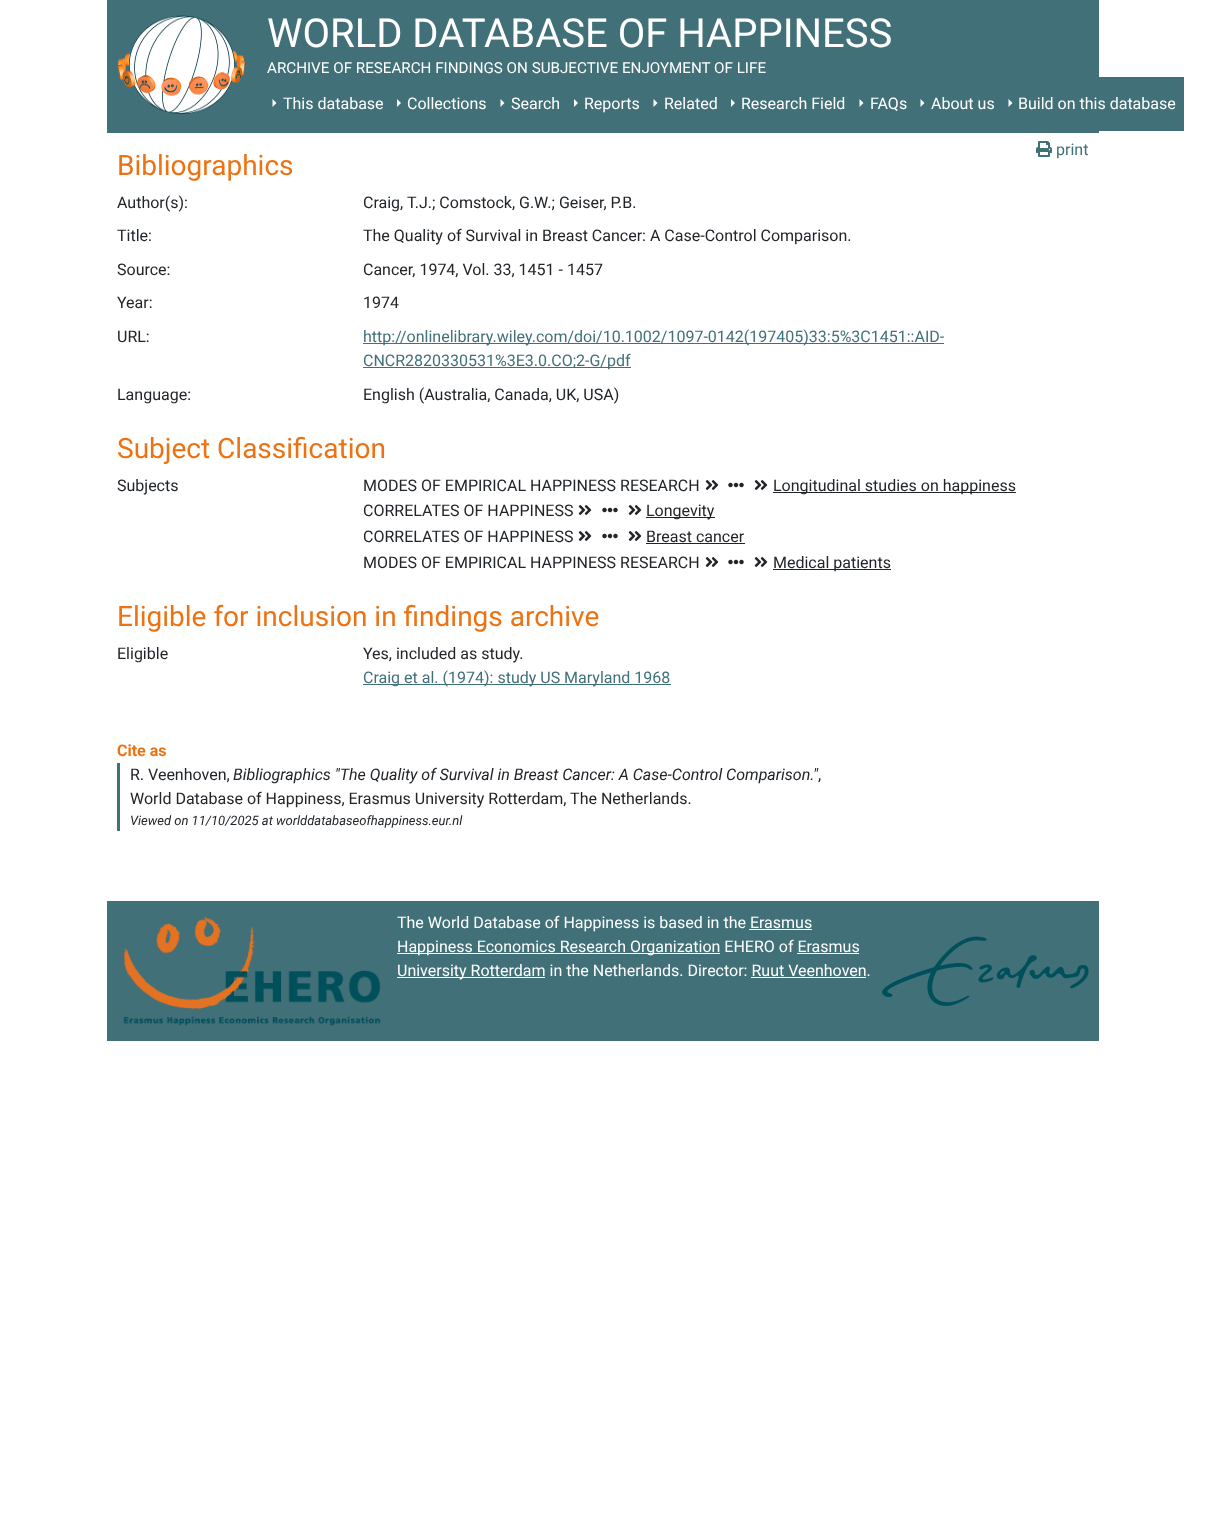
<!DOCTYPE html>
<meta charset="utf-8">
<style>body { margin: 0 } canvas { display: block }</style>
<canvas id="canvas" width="1205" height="1539"></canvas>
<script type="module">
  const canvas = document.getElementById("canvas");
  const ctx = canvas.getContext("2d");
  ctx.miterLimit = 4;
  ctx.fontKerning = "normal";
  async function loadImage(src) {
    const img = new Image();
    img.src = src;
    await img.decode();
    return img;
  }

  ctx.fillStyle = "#ffffff";
  ctx.fillRect(0, 0, 1205, 1539);
  ctx.fillStyle = "#417078";
  ctx.fillRect(107, 0, 992, 133);
  ctx.drawImage(await loadImage("img1.png"), 117, 15, 128, 99);
  ctx.font = "40px Roboto";
  ctx.fillStyle = "#ffffff";
  ctx.fillText("WORLD DATABASE OF HAPPINESS", 267, 47);
  ctx.font = "15.2px Roboto";
  ctx.fillText("ARCHIVE OF RESEARCH FINDINGS ON SUBJECTIVE ENJOYMENT OF LIFE", 267, 73);
  ctx.fillStyle = "#417078";
  ctx.fillRect(1099, 77, 85, 54);
  ctx.fillStyle = "#ffffff";
  ctx.beginPath();
  ctx.moveTo(272.5, 107);
  ctx.lineTo(272.5, 99);
  ctx.lineTo(276.5, 103);
  ctx.closePath();
  ctx.fill();
  ctx.font = "16px Roboto";
  ctx.fillText("This database", 283, 109);
  ctx.beginPath();
  ctx.moveTo(397, 107);
  ctx.lineTo(397, 99);
  ctx.lineTo(401, 103);
  ctx.closePath();
  ctx.fill();
  ctx.fillText("Collections", 407, 109);
  ctx.beginPath();
  ctx.moveTo(500.5, 107);
  ctx.lineTo(500.5, 99);
  ctx.lineTo(504.5, 103);
  ctx.closePath();
  ctx.fill();
  ctx.fillText("Search", 511, 109);
  ctx.beginPath();
  ctx.moveTo(574, 107);
  ctx.lineTo(574, 99);
  ctx.lineTo(578, 103);
  ctx.closePath();
  ctx.fill();
  ctx.fillText("Reports", 584, 109);
  ctx.beginPath();
  ctx.moveTo(653.5, 107);
  ctx.lineTo(653.5, 99);
  ctx.lineTo(657.5, 103);
  ctx.closePath();
  ctx.fill();
  ctx.fillText("Related", 664, 109);
  ctx.beginPath();
  ctx.moveTo(731, 107);
  ctx.lineTo(731, 99);
  ctx.lineTo(735, 103);
  ctx.closePath();
  ctx.fill();
  ctx.fillText("Research Field", 741, 109);
  ctx.beginPath();
  ctx.moveTo(859.5, 107);
  ctx.lineTo(859.5, 99);
  ctx.lineTo(863.5, 103);
  ctx.closePath();
  ctx.fill();
  ctx.fillText("FAQs", 870, 109);
  ctx.beginPath();
  ctx.moveTo(920.5, 107);
  ctx.lineTo(920.5, 99);
  ctx.lineTo(924.5, 103);
  ctx.closePath();
  ctx.fill();
  ctx.fillText("About us", 931, 109);
  ctx.beginPath();
  ctx.moveTo(1008.5, 107);
  ctx.lineTo(1008.5, 99);
  ctx.lineTo(1012.5, 103);
  ctx.closePath();
  ctx.fill();
  ctx.fillText("Build on this database", 1018, 109);
  ctx.drawImage(await loadImage("img2.png"), 1036, 141, 16, 16);
  ctx.fillStyle = "#417078";
  ctx.fillText("print", 1056, 155);
  ctx.font = "28px Roboto";
  ctx.fillStyle = "#ed7212";
  ctx.fillText("Bibliographics", 117, 175);
  ctx.font = "16px Roboto";
  ctx.fillStyle = "#212529";
  ctx.fillText("Author(s):", 117, 208);
  ctx.fillText("Craig, T.J.; Comstock, G.W.; Geiser, P.B.", 363, 208);
  ctx.fillText("Title:", 117, 241);
  ctx.fillText("The Quality of Survival in Breast Cancer: A Case-Control Comparison.", 363, 241);
  ctx.fillText("Source:", 117, 275);
  ctx.fillText("Cancer, 1974, Vol. 33, 1451 - 1457", 363, 275);
  ctx.fillText("Year:", 117, 308);
  ctx.fillText("1974", 363, 308);
  ctx.fillText("URL:", 117, 342);
  ctx.fillStyle = "#417078";
  ctx.fillRect(363, 343, 581, 1);
  ctx.fillText("http://onlinelibrary.wiley.com/doi/10.1002/1097-0142(197405)33:5%3C1451::AID-", 363, 342);
  ctx.fillRect(363, 367, 268, 1);
  ctx.fillText("CNCR2820330531%3E3.0.CO;2-G/pdf", 363, 366);
  ctx.fillStyle = "#212529";
  ctx.fillText("Language:", 117, 400);
  ctx.fillText("English (Australia, Canada, UK, USA)", 363, 400);
  ctx.font = "28px Roboto";
  ctx.fillStyle = "#ed7212";
  ctx.fillText("Subject Classification", 117, 458);
  ctx.font = "16px Roboto";
  ctx.fillStyle = "#212529";
  ctx.fillText("Subjects", 117, 491);
  ctx.fillText("MODES OF EMPIRICAL HAPPINESS RESEARCH", 363, 491);
  ctx.drawImage(await loadImage("img3.png"), 705, 480, 14, 10);
  ctx.drawImage(await loadImage("img4.png"), 728, 482, 16, 6);
  ctx.drawImage(await loadImage("img3.png"), 754, 480, 14, 10);
  ctx.fillRect(773, 492, 243, 1);
  ctx.fillText("Longitudinal studies on happiness", 773, 491);
  ctx.fillText("CORRELATES OF HAPPINESS", 363, 516);
  ctx.drawImage(await loadImage("img3.png"), 578, 505, 14, 10);
  ctx.drawImage(await loadImage("img4.png"), 602, 507, 16, 6);
  ctx.drawImage(await loadImage("img3.png"), 628, 505, 14, 10);
  ctx.fillRect(646, 517, 69, 1);
  ctx.fillText("Longevity", 646, 516);
  ctx.fillText("CORRELATES OF HAPPINESS", 363, 542);
  ctx.drawImage(await loadImage("img3.png"), 578, 531, 14, 10);
  ctx.drawImage(await loadImage("img4.png"), 602, 533, 16, 6);
  ctx.drawImage(await loadImage("img3.png"), 628, 531, 14, 10);
  ctx.fillText("Breast cancer", 646, 542);
  ctx.fillRect(646, 543, 99, 1);
  ctx.fillText("MODES OF EMPIRICAL HAPPINESS RESEARCH", 363, 568);
  ctx.drawImage(await loadImage("img3.png"), 705, 557, 14, 10);
  ctx.drawImage(await loadImage("img4.png"), 728, 559, 16, 6);
  ctx.drawImage(await loadImage("img3.png"), 754, 557, 14, 10);
  ctx.fillRect(773, 569, 118, 1);
  ctx.fillText("Medical patients", 773, 568);
  ctx.font = "28px Roboto";
  ctx.fillStyle = "#ed7212";
  ctx.fillText("Eligible for inclusion in findings archive", 117, 626);
  ctx.font = "16px Roboto";
  ctx.fillStyle = "#212529";
  ctx.fillText("Eligible", 117, 659);
  ctx.fillText("Yes, included as study.", 363, 659);
  ctx.fillStyle = "#417078";
  ctx.fillRect(363, 684, 308, 1);
  ctx.fillText("Craig et al. (1974): study US Maryland 1968", 363, 683);
  ctx.font = "bold 16px Roboto";
  ctx.fillStyle = "#ed7212";
  ctx.fillText("Cite as", 117, 756);
  ctx.fillStyle = "#417078";
  ctx.fillRect(117, 763, 3, 68);
  ctx.font = "16px Roboto";
  ctx.fillStyle = "#212529";
  ctx.fillText("R. Veenhoven,", 130, 780);
  ctx.font = "italic 16px Roboto";
  ctx.fillText("Bibliographics \"The Quality of Survival in Breast Cancer: A Case-Control Comparison.\"", 233, 780);
  ctx.font = "16px Roboto";
  ctx.fillText(",", 818, 780);
  ctx.fillText("World Database of Happiness, Erasmus University Rotterdam, The Netherlands.", 130, 804);
  ctx.font = "italic 13px Roboto";
  ctx.fillText("Viewed on 11/10/2025 at worlddatabaseofhappiness.eur.nl", 130, 825);
  ctx.fillStyle = "#417078";
  ctx.fillRect(107, 901, 992, 140);
  ctx.drawImage(await loadImage("img5.png"), 123, 916, 258, 110);
  ctx.font = "16px Roboto";
  ctx.fillStyle = "#ffffff";
  ctx.fillText("The World Database of Happiness is based in the Erasmus", 397, 928);
  ctx.fillRect(397, 953, 323, 1);
  ctx.fillText("Happiness Economics Research Organization EHERO of Erasmus", 397, 952);
  ctx.fillRect(749, 929, 63, 1);
  ctx.fillRect(397, 977, 148, 1);
  ctx.fillText("University Rotterdam in the Netherlands. Director: Ruut Veenhoven.", 397, 976);
  ctx.fillRect(797, 953, 62, 1);
  ctx.fillRect(751, 977, 115, 1);
  ctx.drawImage(await loadImage("img6.png"), 882, 936, 207, 70);
</script>
